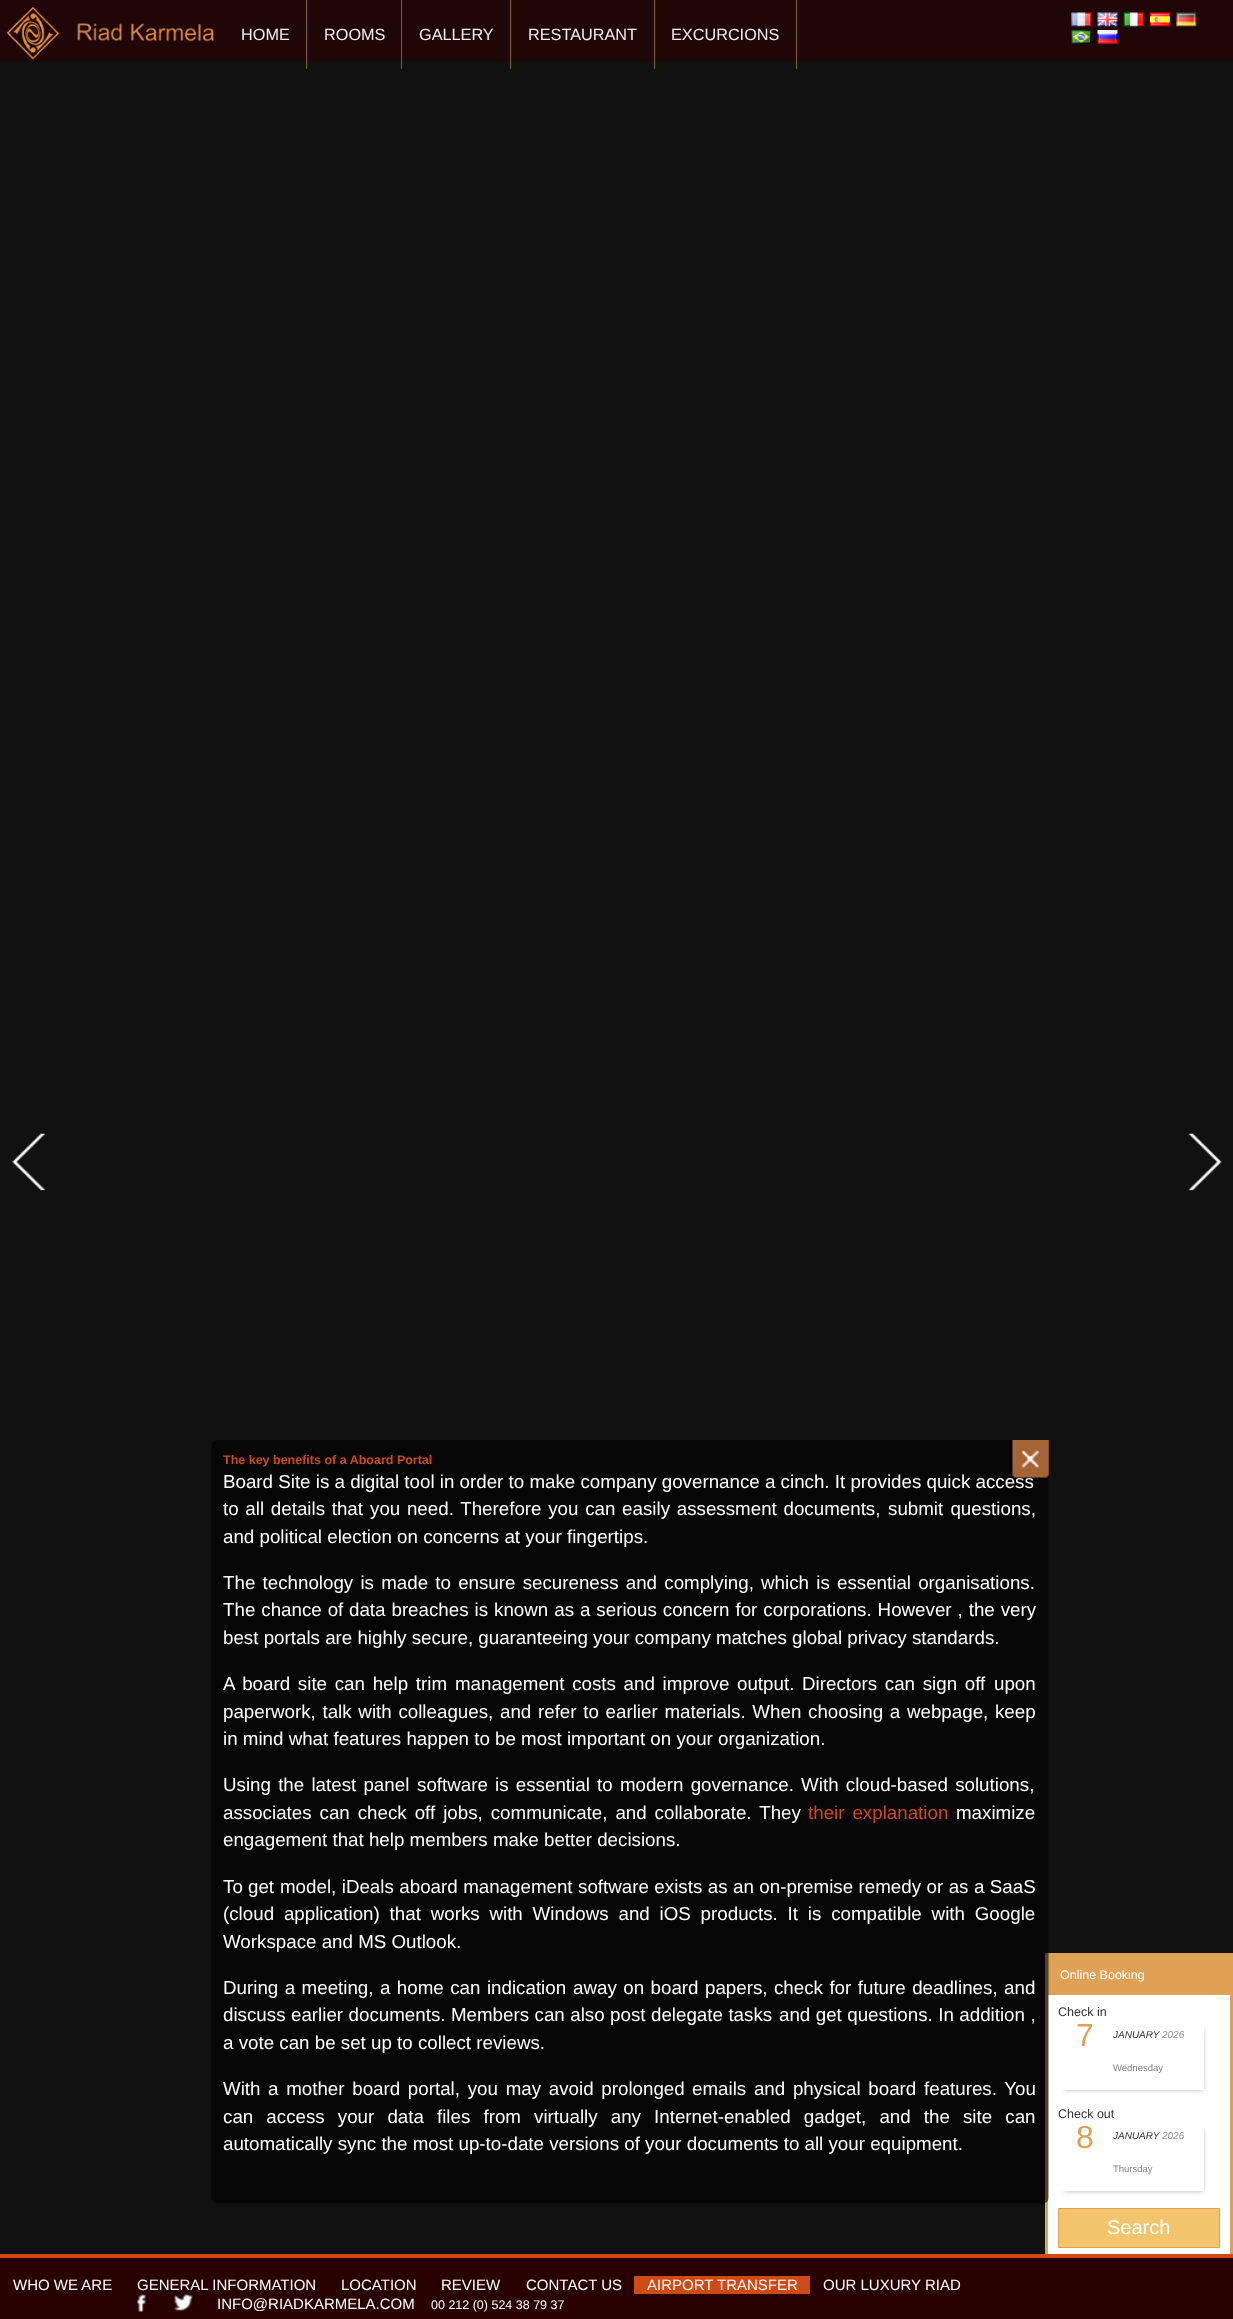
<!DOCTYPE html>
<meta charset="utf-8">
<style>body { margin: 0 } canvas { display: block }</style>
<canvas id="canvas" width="1233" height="2319"></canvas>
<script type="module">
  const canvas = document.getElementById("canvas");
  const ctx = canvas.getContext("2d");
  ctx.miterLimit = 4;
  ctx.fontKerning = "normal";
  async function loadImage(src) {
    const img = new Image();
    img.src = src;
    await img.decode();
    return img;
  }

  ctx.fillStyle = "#111111";
  ctx.fillRect(0, 0, 1233, 2319);
  ctx.fillStyle = "#200707";
  ctx.fillRect(0, 0, 1233, 61);
  ctx.fillStyle = "#825e20";
  ctx.fillRect(306, 0, 1, 69);
  ctx.font = "16.25px Liberation Sans";
  ctx.fillStyle = "#eeeeee";
  ctx.fillText("HOME", 241, 40);
  ctx.fillStyle = "#825e20";
  ctx.fillRect(401, 0, 1, 69);
  ctx.fillStyle = "#eeeeee";
  ctx.fillText("ROOMS", 324, 40);
  ctx.fillStyle = "#825e20";
  ctx.fillRect(510, 0, 1, 69);
  ctx.fillStyle = "#eeeeee";
  ctx.fillText("GALLERY", 419, 40);
  ctx.fillStyle = "#825e20";
  ctx.fillRect(654, 0, 1, 69);
  ctx.fillStyle = "#eeeeee";
  ctx.fillText("RESTAURANT", 528, 40);
  ctx.fillStyle = "#825e20";
  ctx.fillRect(796, 0, 1, 69);
  ctx.fillStyle = "#eeeeee";
  ctx.fillText("EXCURCIONS", 671, 40);
  ctx.drawImage(await loadImage("img1.png"), 12, 1133, 33, 58);
  ctx.drawImage(await loadImage("img2.png"), 1188, 1133, 34, 58);
  ctx.drawImage(await loadImage("img3.png"), 6, 6, 208, 54);
  ctx.drawImage(await loadImage("img4.png"), 1071, 12, 21, 15);
  ctx.drawImage(await loadImage("img5.png"), 1097, 12, 21, 15);
  ctx.drawImage(await loadImage("img6.png"), 1123, 12, 21, 15);
  ctx.drawImage(await loadImage("img7.png"), 1150, 12, 20, 15);
  ctx.drawImage(await loadImage("img8.png"), 1176, 12, 21, 15);
  ctx.drawImage(await loadImage("img9.png"), 1071, 30, 21, 14);
  ctx.drawImage(await loadImage("img10.png"), 1097, 30, 21, 14);
  ctx.fillStyle = "#ffffff";
  ctx.fillRect(1048, 1995, 182, 259);
  ctx.fillStyle = "#dfa154";
  ctx.fillRect(1045, 1953, 188, 2);
  ctx.fillRect(1045, 1953, 3, 305);
  ctx.fillRect(1048, 1955, 182, 40);
  ctx.drawImage(await loadImage("img11.png"), 211, 1440, 838, 764);
  ctx.font = "18.75px Liberation Sans";
  ctx.fillStyle = "#ffffff";
  ctx.fillText("Board Site is a digital tool in order to make company governance a cinch. It provides quick access", 223, 1488);
  ctx.drawImage(await loadImage("img12.png"), 1012, 1440, 37, 38);
  ctx.font = "bold 12.5px Liberation Sans";
  ctx.fillStyle = "#ce4b18";
  ctx.fillText("The key benefits of a Aboard Portal", 223, 1464);
  ctx.wordSpacing = "1.5px";
  ctx.font = "18.75px Liberation Sans";
  ctx.fillStyle = "#ffffff";
  ctx.fillText("to all details that", 223, 1515);
  ctx.fillText("you need. Therefore you can easily assessment documents,", 370, 1515);
  ctx.wordSpacing = "2px";
  ctx.fillText("submit questions,", 888, 1515);
  ctx.wordSpacing = "0px";
  ctx.fillText("and political election on concerns at your fingertips.", 223, 1543);
  ctx.wordSpacing = "2px";
  ctx.fillText("The technology is made to ensure secureness and complying, which is essential organisations.", 223, 1589);
  ctx.wordSpacing = "0.75px";
  ctx.fillText("The chance of", 223, 1616);
  ctx.fillText("data breaches is known as a serious concern for corporations. However , the very", 349, 1616);
  ctx.wordSpacing = "0px";
  ctx.fillText("best portals are highly secure, guaranteeing your company matches global privacy standards.", 223, 1644);
  ctx.wordSpacing = "2.5px";
  ctx.fillText("A board site can help trim", 223, 1690);
  ctx.fillText("management costs and improve output. Directors can sign off", 455, 1690);
  ctx.wordSpacing = "0px";
  ctx.fillText("upon", 994, 1690);
  ctx.wordSpacing = "1.5px";
  ctx.fillText("paperwork, talk with colleagues, and refer to earlier materials. When choosing a webpage, keep", 223, 1718);
  ctx.wordSpacing = "0px";
  ctx.fillText("in mind what features happen to be most important on your organization.", 223, 1745);
  ctx.wordSpacing = "2px";
  ctx.fillText("Using the latest panel", 223, 1791);
  ctx.fillText("software is essential to modern governance. With cloud-based solutions,", 417, 1791);
  ctx.wordSpacing = "2.75px";
  ctx.fillText("associates can check off jobs, communicate, and collaborate. They", 223, 1819);
  ctx.fillStyle = "#ce4b18";
  ctx.fillText("their explanation", 808, 1819);
  ctx.wordSpacing = "0px";
  ctx.fillStyle = "#ffffff";
  ctx.fillText("maximize", 956, 1819);
  ctx.fillText("engagement that help members make better decisions.", 223, 1846);
  ctx.fillText("To get", 223, 1893);
  ctx.wordSpacing = "0.25px";
  ctx.fillText("model, iDeals aboard management software exists as an on-premise remedy or as a SaaS", 280, 1893);
  ctx.wordSpacing = "4.6px";
  ctx.fillText("(cloud application) that works with Windows and iOS products. It is compatible with Google", 223, 1920);
  ctx.wordSpacing = "0px";
  ctx.fillText("Workspace and MS Outlook.", 223, 1948);
  ctx.wordSpacing = "1.25px";
  ctx.fillText("During a meeting, a home can indication", 223, 1994);
  ctx.fillText("away on board papers, check for future deadlines, and", 573, 1994);
  ctx.wordSpacing = "0.25px";
  ctx.fillText("discuss earlier documents. Members can also post delegate tasks", 223, 2021);
  ctx.fillText("and get questions. In addition ,", 779, 2021);
  ctx.wordSpacing = "0px";
  ctx.fillText("a vote can be set up to collect reviews.", 223, 2049);
  ctx.fillText("With", 223, 2095);
  ctx.wordSpacing = "2.5px";
  ctx.fillText("a mother board portal, you may avoid prolonged", 268, 2095);
  ctx.fillText("emails and physical board features. You", 692, 2095);
  ctx.wordSpacing = "7.9px";
  ctx.fillText("can access your data files from virtually any Internet-enabled gadget, and the site can", 223, 2123);
  ctx.wordSpacing = "0px";
  ctx.fillText("automatically sync the most up-to-date versions of your documents to all your equipment.", 223, 2150);
  ctx.fillStyle = "#dfa154";
  ctx.fillRect(1230, 1953, 3, 305);
  ctx.font = "12.5px Liberation Sans";
  ctx.fillStyle = "#ffffff";
  ctx.fillText("Online Booking", 1060, 1979);
  ctx.fillStyle = "#333333";
  ctx.fillText("Check in", 1058, 2016);
  ctx.save();
  ctx.beginPath();
  ctx.moveTo(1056, 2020);
  ctx.lineTo(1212, 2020);
  ctx.lineTo(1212, 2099);
  ctx.lineTo(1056, 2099);
  ctx.closePath();
  ctx.moveTo(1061, 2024);
  ctx.lineTo(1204, 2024);
  ctx.lineTo(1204, 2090);
  ctx.lineTo(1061, 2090);
  ctx.closePath();
  ctx.clip("evenodd");
  ctx.fillStyle = "rgba(0, 0, 0, 0.3)";
  ctx.filter = "blur(2.5px)";
  ctx.beginPath();
  ctx.rect(1065, 2029, 138, 61);
  ctx.fill();
  ctx.filter = "none";
  ctx.restore();
  ctx.save();
  ctx.beginPath();
  ctx.rect(1061, 2024, 143, 66);
  ctx.clip();
  ctx.font = "32px Liberation Sans";
  ctx.fillStyle = "#dfa154";
  ctx.fillText("7", 1076, 2046);
  ctx.restore();
  ctx.font = "italic 10px Liberation Sans";
  ctx.fillText("JANUARY", 1113, 2038);
  ctx.fillStyle = "#909090";
  ctx.fillText("2026", 1162, 2038);
  ctx.font = "9.5px Liberation Sans";
  ctx.fillStyle = "#808080";
  ctx.fillText("Wednesday", 1113, 2071);
  ctx.font = "12.5px Liberation Sans";
  ctx.fillStyle = "#333333";
  ctx.fillText("Check out", 1058, 2118);
  ctx.save();
  ctx.beginPath();
  ctx.moveTo(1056, 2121);
  ctx.lineTo(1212, 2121);
  ctx.lineTo(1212, 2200);
  ctx.lineTo(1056, 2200);
  ctx.closePath();
  ctx.moveTo(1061, 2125);
  ctx.lineTo(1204, 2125);
  ctx.lineTo(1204, 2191);
  ctx.lineTo(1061, 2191);
  ctx.closePath();
  ctx.clip("evenodd");
  ctx.fillStyle = "rgba(0, 0, 0, 0.3)";
  ctx.filter = "blur(2.5px)";
  ctx.beginPath();
  ctx.rect(1065, 2130, 138, 61);
  ctx.fill();
  ctx.filter = "none";
  ctx.restore();
  ctx.font = "32px Liberation Sans";
  ctx.fillStyle = "#dfa154";
  ctx.fillText("8", 1076, 2148);
  ctx.font = "italic 10px Liberation Sans";
  ctx.fillStyle = "#333333";
  ctx.fillText("JANUARY", 1113, 2139);
  ctx.fillStyle = "#909090";
  ctx.fillText("2026", 1162, 2139);
  ctx.font = "9.5px Liberation Sans";
  ctx.fillStyle = "#808080";
  ctx.fillText("Thursday", 1113, 2172);
  ctx.fillStyle = "#f2c46c";
  ctx.beginPath();
  ctx.rect(1058.5, 2208.5, 161, 39);
  ctx.fill();
  ctx.strokeStyle = "#dfa154";
  ctx.stroke();
  ctx.font = "20px Liberation Sans";
  ctx.fillStyle = "#ffffff";
  ctx.fillText("Search", 1107, 2234);
  ctx.fillStyle = "#290000";
  ctx.fillRect(0, 2258, 1233, 61);
  ctx.fillStyle = "#ce4b18";
  ctx.fillRect(0, 2254, 1233, 4);
  ctx.font = "15px Liberation Sans";
  ctx.fillStyle = "#ffffff";
  ctx.fillText("WHO WE ARE", 13, 2290);
  ctx.fillText("GENERAL INFORMATION", 137, 2290);
  ctx.fillText("LOCATION", 341, 2290);
  ctx.fillText("REVIEW", 441, 2290);
  ctx.fillText("CONTACT US", 526, 2290);
  ctx.fillStyle = "#ce4b18";
  ctx.fillRect(634, 2276, 176, 18);
  ctx.fillStyle = "#ffffff";
  ctx.fillText("AIRPORT TRANSFER", 647, 2290);
  ctx.fillText("OUR LUXURY RIAD", 823, 2290);
  ctx.drawImage(await loadImage("img13.png"), 137, 2294, 9, 18);
  ctx.drawImage(await loadImage("img14.png"), 173, 2294, 20, 18);
  ctx.fillText("INFO@RIADKARMELA.COM", 217, 2309);
  ctx.font = "12.5px Liberation Sans";
  ctx.fillText("00 212 (0) 524 38 79 37", 431, 2309);
</script>
